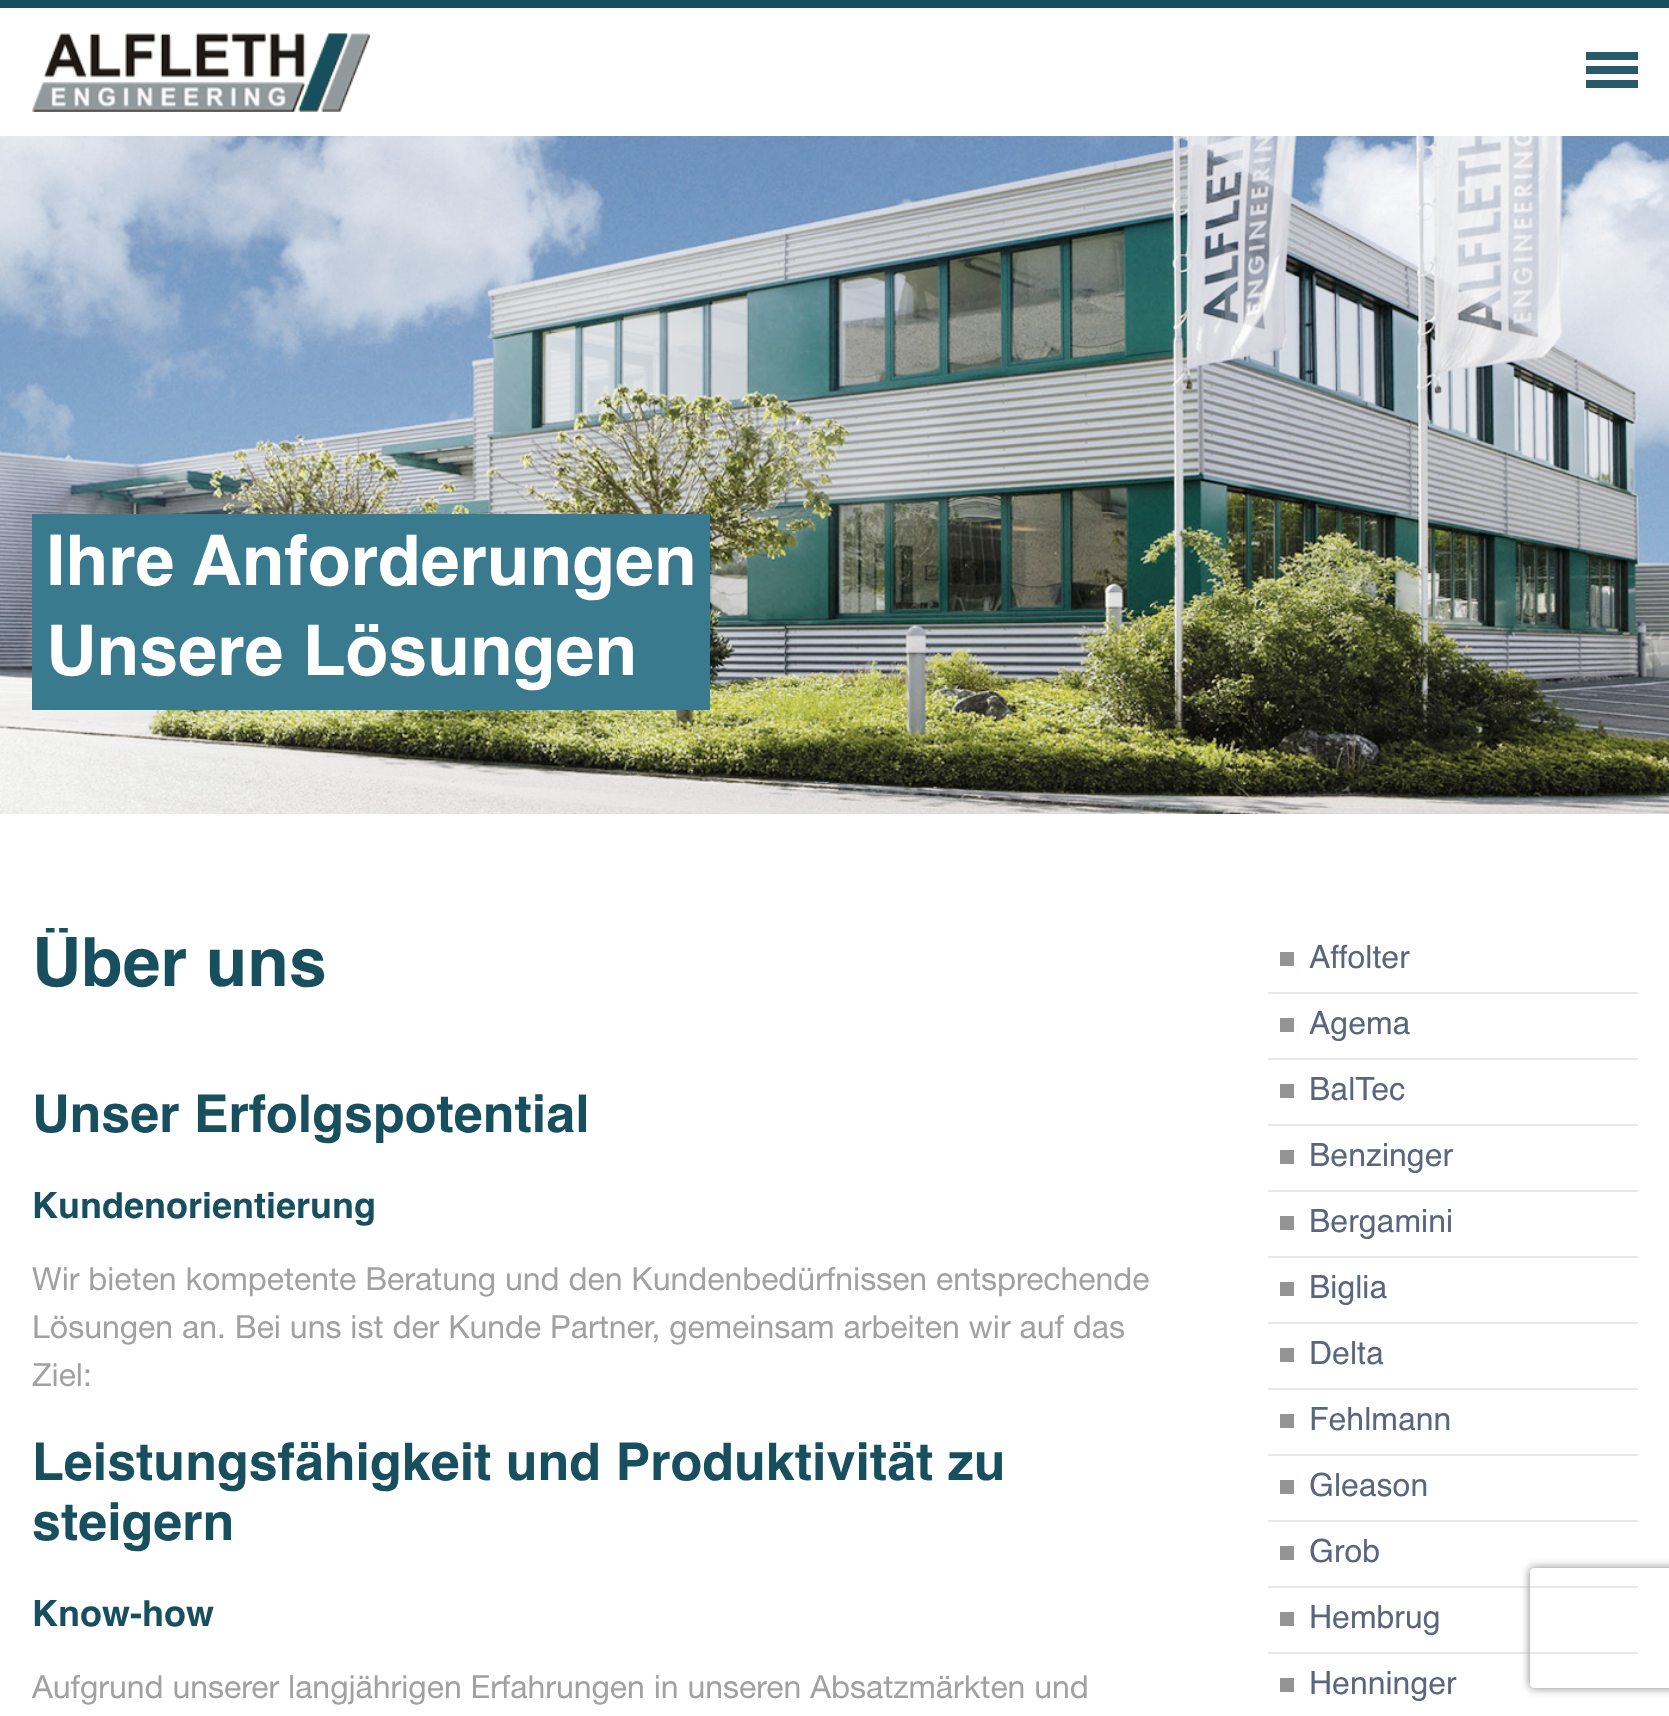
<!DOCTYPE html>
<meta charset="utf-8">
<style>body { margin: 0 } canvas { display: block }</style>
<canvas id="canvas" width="1669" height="1716"></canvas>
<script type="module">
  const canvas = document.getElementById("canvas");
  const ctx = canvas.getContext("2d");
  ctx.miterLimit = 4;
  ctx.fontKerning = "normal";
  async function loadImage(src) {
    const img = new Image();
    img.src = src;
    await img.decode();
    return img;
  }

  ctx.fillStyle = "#ffffff";
  ctx.fillRect(0, 0, 1669, 1716);
  ctx.fillStyle = "#184f5f";
  ctx.fillRect(0, 0, 1669, 8);
  ctx.drawImage(await loadImage("img1.png"), 32, 33, 338, 79);
  ctx.fillStyle = "#275b6a";
  ctx.fillRect(1586, 52, 52, 8);
  ctx.fillRect(1586, 80, 52, 8);
  ctx.fillRect(1586, 66, 52, 8);
  ctx.drawImage(await loadImage("img2.png"), 0, 136, 1669, 678);
  ctx.fillStyle = "#3a7a8e";
  ctx.fillRect(32, 514, 678, 196);
  ctx.font = "bold 70px Helvetica";
  ctx.fillStyle = "#ffffff";
  ctx.fillText("Ihre Anforderungen", 46, 585);
  ctx.fillText("Unsere Lösungen", 46, 675);
  ctx.save();
  ctx.beginPath();
  ctx.rect(32, 928, 1124, 80);
  ctx.clip();
  ctx.font = "bold 68px Helvetica";
  ctx.fillStyle = "#184f5f";
  ctx.fillText("Über uns", 32, 986);
  ctx.restore();
  ctx.font = "bold 52px Helvetica";
  ctx.fillStyle = "#184f5f";
  ctx.fillText("Unser Erfolgspotential", 32, 1132);
  ctx.font = "bold 36px Helvetica";
  ctx.fillText("Kundenorientierung", 32, 1218);
  ctx.font = "32px Helvetica Neue";
  ctx.fillStyle = "#a1a1a1";
  ctx.fillText("Wir bieten kompetente Beratung und den Kundenbedürfnissen entsprechende", 32, 1290);
  ctx.fillText("Lösungen an. Bei uns ist der Kunde Partner, gemeinsam arbeiten wir auf das", 32, 1338);
  ctx.fillText("Ziel:", 32, 1386);
  ctx.font = "bold 52px Helvetica";
  ctx.fillStyle = "#184f5f";
  ctx.fillText("Leistungsfähigkeit und Produktivität zu", 32, 1480);
  ctx.fillText("steigern", 32, 1540);
  ctx.font = "bold 36px Helvetica";
  ctx.fillText("Know-how", 32, 1626);
  ctx.font = "32px Helvetica Neue";
  ctx.fillStyle = "#a1a1a1";
  ctx.fillText("Aufgrund unserer langjährigen Erfahrungen in unseren Absatzmärkten und", 32, 1698);
  ctx.fillStyle = "#e7eaec";
  ctx.fillRect(1268, 992, 370, 2);
  ctx.fillStyle = "#949494";
  ctx.fillRect(1280, 952, 14, 14);
  ctx.font = "32px Helvetica";
  ctx.fillStyle = "#5a657e";
  ctx.fillText("Affolter", 1309, 968);
  ctx.fillStyle = "#e7eaec";
  ctx.fillRect(1268, 1058, 370, 2);
  ctx.fillStyle = "#949494";
  ctx.fillRect(1280, 1018, 14, 14);
  ctx.fillStyle = "#5a657e";
  ctx.fillText("Agema", 1309, 1034);
  ctx.fillStyle = "#e7eaec";
  ctx.fillRect(1268, 1124, 370, 2);
  ctx.fillStyle = "#949494";
  ctx.fillRect(1280, 1084, 14, 14);
  ctx.fillStyle = "#5a657e";
  ctx.fillText("BalTec", 1309, 1100);
  ctx.fillStyle = "#e7eaec";
  ctx.fillRect(1268, 1190, 370, 2);
  ctx.fillStyle = "#949494";
  ctx.fillRect(1280, 1150, 14, 14);
  ctx.fillStyle = "#5a657e";
  ctx.fillText("Benzinger", 1309, 1166);
  ctx.fillStyle = "#e7eaec";
  ctx.fillRect(1268, 1256, 370, 2);
  ctx.fillStyle = "#949494";
  ctx.fillRect(1280, 1216, 14, 14);
  ctx.fillStyle = "#5a657e";
  ctx.fillText("Bergamini", 1309, 1232);
  ctx.fillStyle = "#e7eaec";
  ctx.fillRect(1268, 1322, 370, 2);
  ctx.fillStyle = "#949494";
  ctx.fillRect(1280, 1282, 14, 14);
  ctx.fillStyle = "#5a657e";
  ctx.fillText("Biglia", 1309, 1298);
  ctx.fillStyle = "#e7eaec";
  ctx.fillRect(1268, 1388, 370, 2);
  ctx.fillStyle = "#949494";
  ctx.fillRect(1280, 1348, 14, 14);
  ctx.fillStyle = "#5a657e";
  ctx.fillText("Delta", 1309, 1364);
  ctx.fillStyle = "#e7eaec";
  ctx.fillRect(1268, 1454, 370, 2);
  ctx.fillStyle = "#949494";
  ctx.fillRect(1280, 1414, 14, 14);
  ctx.fillStyle = "#5a657e";
  ctx.fillText("Fehlmann", 1309, 1430);
  ctx.fillStyle = "#e7eaec";
  ctx.fillRect(1268, 1520, 370, 2);
  ctx.fillStyle = "#949494";
  ctx.fillRect(1280, 1480, 14, 14);
  ctx.fillStyle = "#5a657e";
  ctx.fillText("Gleason", 1309, 1496);
  ctx.fillStyle = "#e7eaec";
  ctx.fillRect(1268, 1586, 370, 2);
  ctx.fillStyle = "#949494";
  ctx.fillRect(1280, 1546, 14, 14);
  ctx.fillStyle = "#5a657e";
  ctx.fillText("Grob", 1309, 1562);
  ctx.fillStyle = "#e7eaec";
  ctx.fillRect(1268, 1652, 370, 2);
  ctx.fillStyle = "#949494";
  ctx.fillRect(1280, 1612, 14, 14);
  ctx.fillStyle = "#5a657e";
  ctx.fillText("Hembrug", 1309, 1628);
  ctx.fillStyle = "#949494";
  ctx.fillRect(1280, 1678, 14, 14);
  ctx.fillStyle = "#5a657e";
  ctx.fillText("Henninger", 1309, 1694);
  ctx.save();
  ctx.beginPath();
  ctx.moveTo(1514, 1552);
  ctx.lineTo(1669, 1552);
  ctx.lineTo(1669, 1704);
  ctx.lineTo(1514, 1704);
  ctx.closePath();
  ctx.moveTo(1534, 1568);
  ctx.lineTo(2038, 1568);
  ctx.bezierCurveTo(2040, 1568, 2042, 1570, 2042, 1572);
  ctx.lineTo(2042, 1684);
  ctx.bezierCurveTo(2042, 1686, 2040, 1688, 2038, 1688);
  ctx.lineTo(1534, 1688);
  ctx.bezierCurveTo(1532, 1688, 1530, 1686, 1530, 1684);
  ctx.lineTo(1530, 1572);
  ctx.bezierCurveTo(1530, 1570, 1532, 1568, 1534, 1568);
  ctx.closePath();
  ctx.clip("evenodd");
  ctx.fillStyle = "#808080";
  ctx.filter = "blur(5px)";
  ctx.beginPath();
  ctx.roundRect(1530, 1568, 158, 120, 4);
  ctx.fill();
  ctx.filter = "none";
  ctx.restore();
</script>
